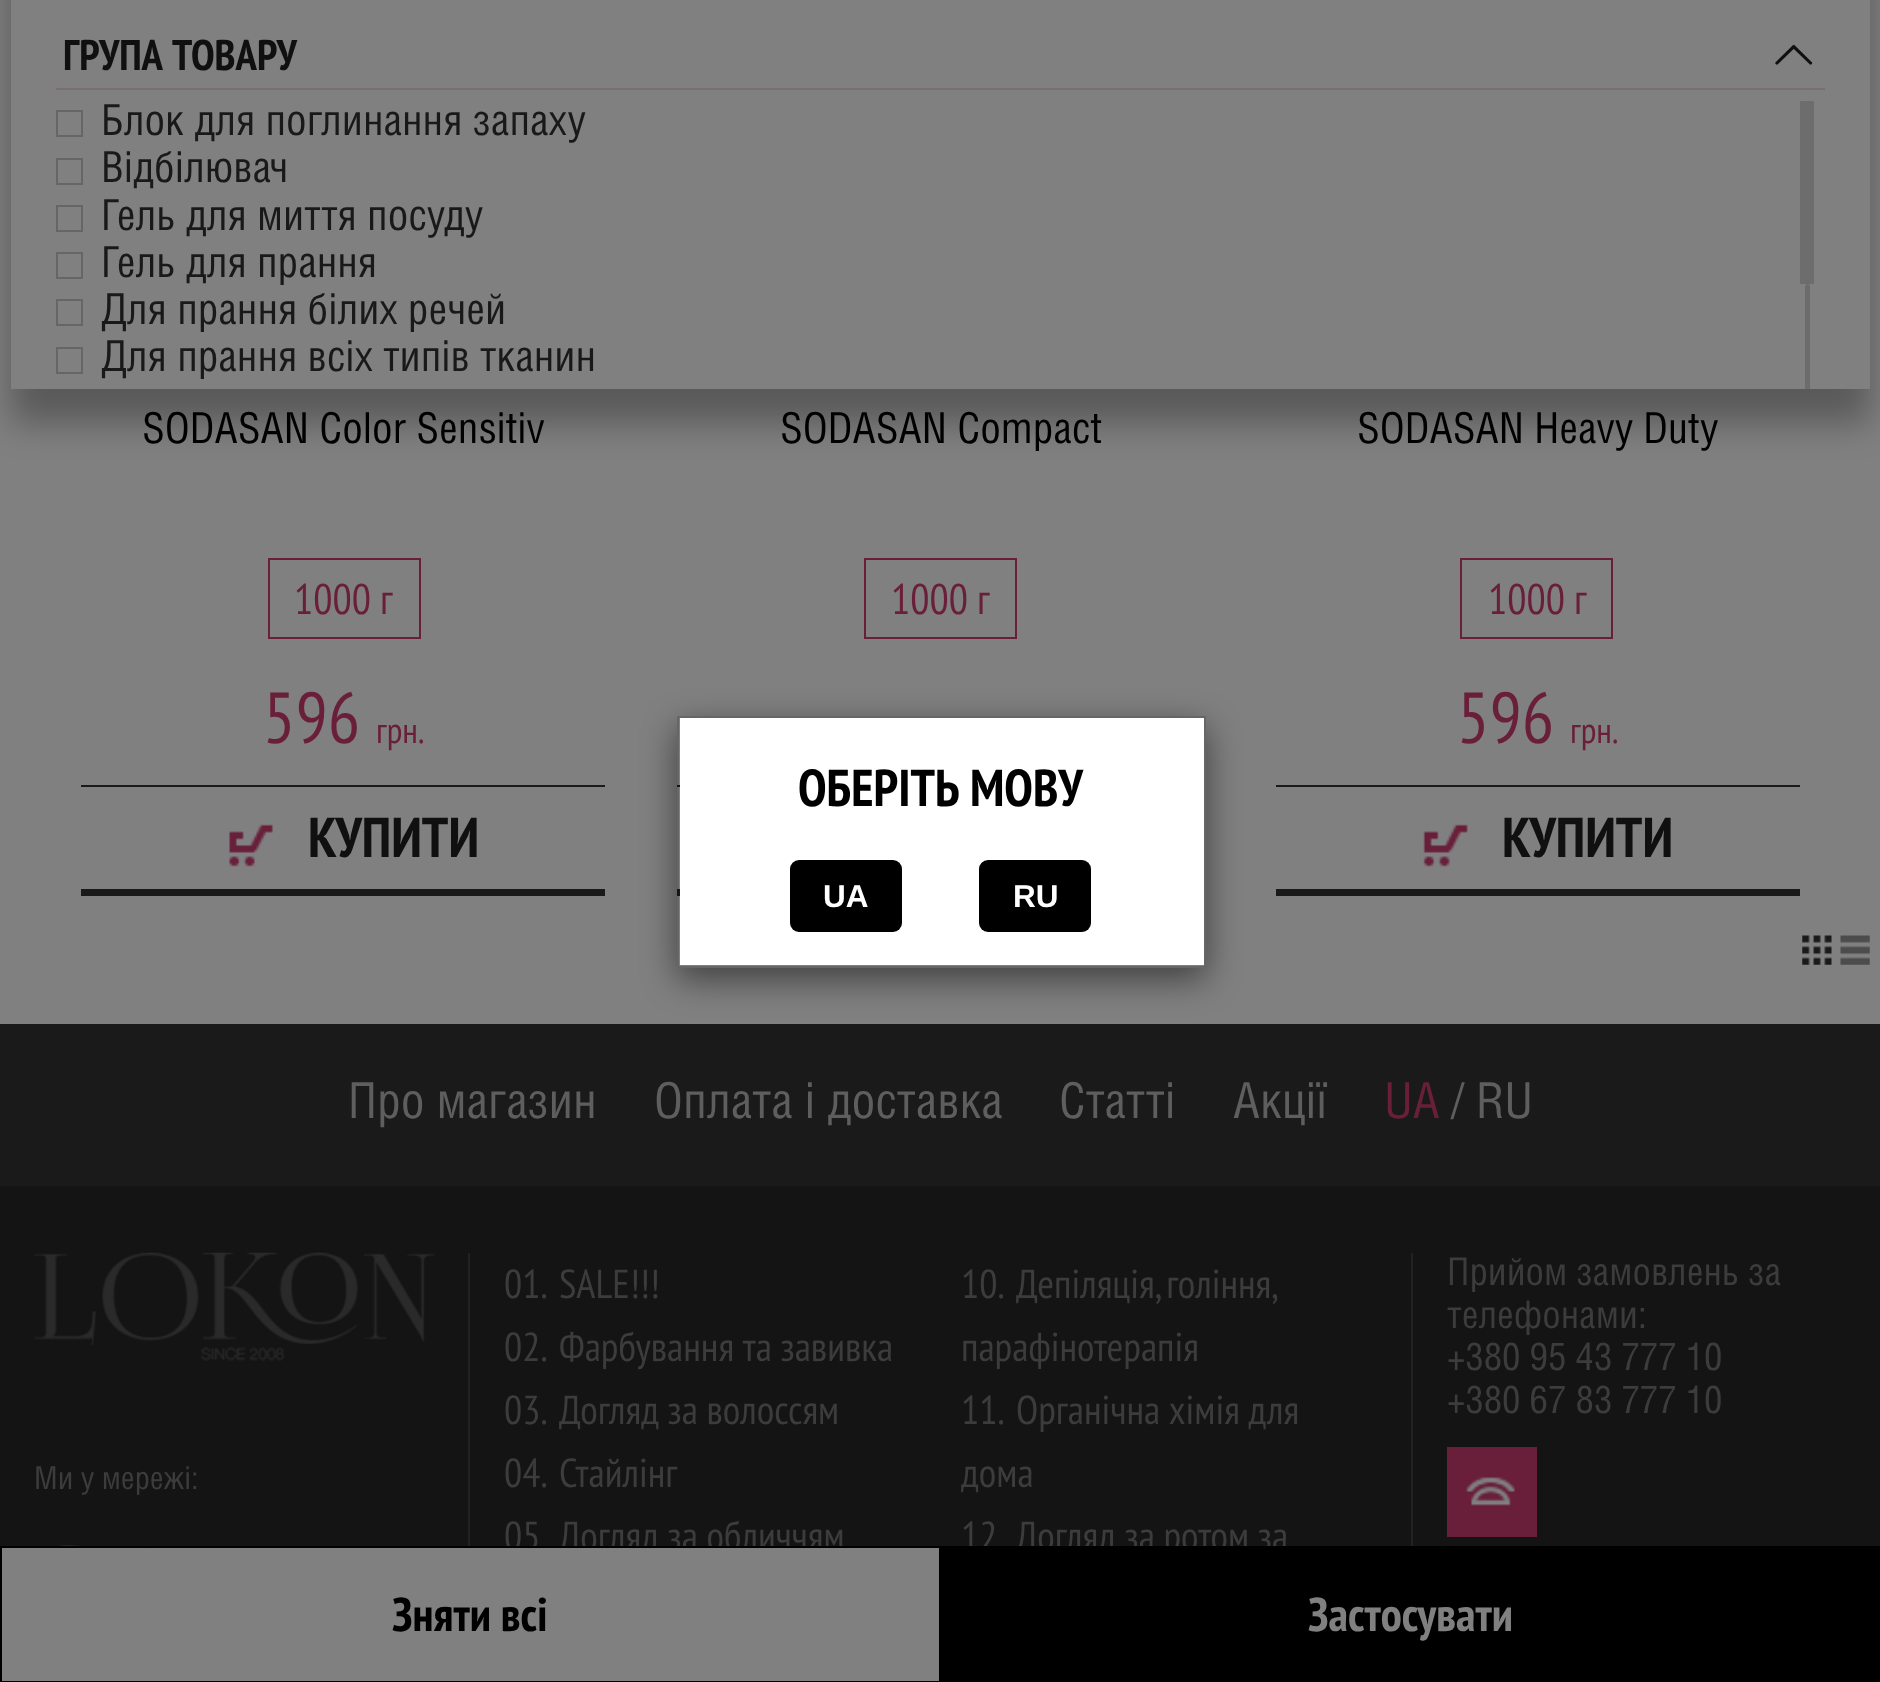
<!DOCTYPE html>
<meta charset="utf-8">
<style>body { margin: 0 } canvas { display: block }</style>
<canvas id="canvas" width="1880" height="1682"></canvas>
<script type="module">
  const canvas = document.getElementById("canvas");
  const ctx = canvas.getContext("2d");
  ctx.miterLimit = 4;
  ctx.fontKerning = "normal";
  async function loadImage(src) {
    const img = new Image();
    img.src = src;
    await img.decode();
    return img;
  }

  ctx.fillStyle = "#808080";
  ctx.fillRect(0, 0, 1880, 1682);
  ctx.fillStyle = "rgba(0, 0, 0, 0.3)";
  ctx.filter = "blur(17px)";
  ctx.beginPath();
  ctx.rect(11, -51, 1859, 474);
  ctx.fill();
  ctx.filter = "none";
  ctx.fillStyle = "#808080";
  ctx.fillRect(11, 0, 1859, 389);
  ctx.fillStyle = "#7a6e6f";
  ctx.fillRect(56, 88, 1769, 2);
  ctx.wordSpacing = "3px";
  ctx.font = "bold 42.75px PT Sans Narrow";
  ctx.fillStyle = "#101010";
  ctx.fillText("ГРУПА ТОВАРУ", 63, 70);
  ctx.drawImage(await loadImage("img1.png"), 1775, 44, 38, 21);
  ctx.strokeStyle = "#666666";
  ctx.lineWidth = 2;
  ctx.strokeRect(57, 111, 25, 25);
  ctx.wordSpacing = "0px";
  ctx.font = "42.75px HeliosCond";
  ctx.fillStyle = "#191919";
  ctx.fillText("Блок для поглинання запаху", 101, 135);
  ctx.strokeRect(57, 159, 25, 25);
  ctx.fillText("Відбілювач", 101, 182);
  ctx.strokeRect(57, 206, 25, 25);
  ctx.fillText("Гель для миття посуду", 101, 230);
  ctx.strokeRect(57, 253, 25, 25);
  ctx.fillText("Гель для прання", 101, 277);
  ctx.strokeRect(57, 300, 25, 25);
  ctx.fillText("Для прання білих речей", 101, 324);
  ctx.strokeRect(57, 348, 25, 25);
  ctx.fillText("Для прання всіх типів тканин", 101, 371);
  ctx.fillStyle = "#6d6d6d";
  ctx.fillRect(1800, 101, 14, 183);
  ctx.fillStyle = "#6c6c6c";
  ctx.beginPath();
  ctx.roundRect(1805, 284, 5, 105, [2.5, 2.5, 0, 0]);
  ctx.fill();
  ctx.fillStyle = "#141414";
  ctx.fillRect(0, 1186, 1880, 360);
  ctx.font = "40.5px PT Sans Narrow";
  ctx.fillStyle = "#3c3c3c";
  ctx.fillText("05", 504, 1550);
  ctx.fillText("Догляд за обличчям", 559, 1550);
  ctx.fillStyle = "#808080";
  ctx.fillRect(508, 1548, 335, 8);
  ctx.strokeStyle = "#000000";
  ctx.strokeRect(1, 1547, 939, 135);
  ctx.font = "bold 47.25px PT Sans Narrow";
  ctx.fillStyle = "#000000";
  ctx.fillText("Зняти всі", 392, 1631);
  ctx.font = "40.5px PT Sans Narrow";
  ctx.fillStyle = "#3c3c3c";
  ctx.fillText("12", 961, 1550);
  ctx.fillText("Догляд за ротом за", 1016, 1550);
  ctx.fillStyle = "#000000";
  ctx.fillRect(941, 1546, 939, 136);
  ctx.font = "bold 47.25px PT Sans Narrow";
  ctx.fillStyle = "#808080";
  ctx.fillText("Застосувати", 1308, 1631);
  ctx.font = "42.75px HeliosCond";
  ctx.fillStyle = "#000000";
  ctx.fillText("SODASAN Color Sensitiv", 142, 443);
  ctx.strokeStyle = "#691f3a";
  ctx.strokeRect(269, 559, 151, 79);
  ctx.font = "42.75px PT Sans Narrow";
  ctx.fillStyle = "#691f3a";
  ctx.fillText("1000 г", 294, 614);
  ctx.font = "72px PT Sans Narrow";
  ctx.fillText("596", 263, 743);
  ctx.font = "36px PT Sans Narrow";
  ctx.fillText("грн.", 376, 743);
  ctx.fillStyle = "#1a1a1a";
  ctx.fillRect(81, 785, 524, 2);
  ctx.fillRect(81, 889, 524, 7);
  ctx.drawImage(await loadImage("img2.png"), 229, 824, 44, 43);
  ctx.font = "bold 56px PT Sans Narrow";
  ctx.fillStyle = "#101010";
  ctx.fillText("КУПИТИ", 308, 857);
  ctx.font = "42.75px HeliosCond";
  ctx.fillStyle = "#000000";
  ctx.fillText("SODASAN Compact", 780, 443);
  ctx.strokeRect(865, 559, 151, 79);
  ctx.font = "42.75px PT Sans Narrow";
  ctx.fillStyle = "#691f3a";
  ctx.fillText("1000 г", 891, 614);
  ctx.fillStyle = "#1a1a1a";
  ctx.fillRect(677, 785, 3, 2);
  ctx.fillRect(677, 889, 3, 7);
  ctx.font = "42.75px HeliosCond";
  ctx.fillStyle = "#000000";
  ctx.fillText("SODASAN Heavy Duty", 1357, 443);
  ctx.strokeRect(1461, 559, 151, 79);
  ctx.font = "42.75px PT Sans Narrow";
  ctx.fillStyle = "#691f3a";
  ctx.fillText("1000 г", 1488, 614);
  ctx.font = "72px PT Sans Narrow";
  ctx.fillText("596", 1457, 743);
  ctx.font = "36px PT Sans Narrow";
  ctx.fillText("грн.", 1570, 743);
  ctx.fillStyle = "#1a1a1a";
  ctx.fillRect(1276, 785, 524, 2);
  ctx.fillRect(1276, 889, 524, 7);
  ctx.drawImage(await loadImage("img3.png"), 1423, 824, 45, 43);
  ctx.font = "bold 56px PT Sans Narrow";
  ctx.fillStyle = "#101010";
  ctx.fillText("КУПИТИ", 1502, 857);
  ctx.drawImage(await loadImage("img4.png"), 1802, 935, 30, 30);
  ctx.drawImage(await loadImage("img5.png"), 1840, 935, 30, 30);
  ctx.fillStyle = "#1a1a1a";
  ctx.fillRect(0, 1024, 1880, 162);
  ctx.font = "49.5px HeliosCond";
  ctx.fillStyle = "#5e5e5e";
  ctx.fillText("Про магазин", 348, 1118);
  ctx.fillText("Оплата і доставка", 654, 1118);
  ctx.fillText("Статті", 1059, 1118);
  ctx.fillText("Акції", 1233, 1118);
  ctx.fillStyle = "#691f3a";
  ctx.fillText("UA", 1384, 1118);
  ctx.fillStyle = "#5e5e5e";
  ctx.fillText("/ RU", 1451, 1118);
  ctx.fillStyle = "#222222";
  ctx.fillRect(468, 1253, 2, 293);
  ctx.drawImage(await loadImage("img6.png"), 34, 1252, 401, 109);
  ctx.font = "31.5px HeliosCond";
  ctx.fillStyle = "#3c3c3c";
  ctx.fillText("Ми у мережі:", 34, 1489);
  ctx.drawImage(await loadImage("img7.png"), 56, 1545, 26, 1);
  ctx.drawImage(await loadImage("img8.png"), 148, 1545, 3, 1);
  ctx.font = "40.5px PT Sans Narrow";
  ctx.fillText("01.", 504, 1298);
  ctx.fillText("SALE!!!", 559, 1298);
  ctx.fillText("10.", 961, 1298);
  ctx.wordSpacing = "-2px";
  ctx.fillText("Депіляція, гоління,", 1016, 1298);
  ctx.wordSpacing = "0px";
  ctx.fillText("парафінотерапія", 961, 1361);
  ctx.fillText("02.", 504, 1361);
  ctx.fillText("Фарбування та завивка", 559, 1361);
  ctx.fillText("03.", 504, 1424);
  ctx.fillText("Догляд за волоссям", 559, 1424);
  ctx.fillText("11.", 961, 1424);
  ctx.fillText("Органічна хімія для", 1016, 1424);
  ctx.fillText("дома", 961, 1487);
  ctx.fillText("04.", 504, 1487);
  ctx.fillText("Стайлінг", 559, 1487);
  ctx.fillStyle = "#222222";
  ctx.fillRect(1411, 1253, 2, 293);
  ctx.font = "38.25px HeliosCond";
  ctx.fillStyle = "#3c3c3c";
  ctx.fillText("Прийом замовлень за", 1447, 1285);
  ctx.fillText("телефонами:", 1447, 1328);
  ctx.fillText("+380 95 43 777 10", 1447, 1370);
  ctx.fillText("+380 67 83 777 10", 1447, 1413);
  ctx.fillStyle = "#691f3a";
  ctx.fillRect(1447, 1447, 90, 90);
  ctx.drawImage(await loadImage("img9.png"), 1466, 1477, 49, 29);
  ctx.save();
  ctx.beginPath();
  ctx.moveTo(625, 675);
  ctx.lineTo(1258, 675);
  ctx.lineTo(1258, 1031);
  ctx.lineTo(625, 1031);
  ctx.closePath();
  ctx.moveTo(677, 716);
  ctx.lineTo(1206, 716);
  ctx.lineTo(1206, 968);
  ctx.lineTo(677, 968);
  ctx.closePath();
  ctx.clip("evenodd");
  ctx.fillStyle = "rgba(0, 0, 0, 0.5)";
  ctx.filter = "blur(17px)";
  ctx.beginPath();
  ctx.rect(677, 727, 529, 252);
  ctx.fill();
  ctx.filter = "none";
  ctx.restore();
  ctx.fillStyle = "#ffffff";
  ctx.fillRect(680, 718, 524, 247);
  ctx.strokeStyle = "rgba(0, 0, 0, 0.2)";
  ctx.strokeRect(678, 717, 527, 250);
  ctx.wordSpacing = "1px";
  ctx.font = "bold 51.75px PT Sans Narrow";
  ctx.fillStyle = "#000000";
  ctx.fillText("ОБЕРІТЬ МОВУ", 798, 806);
  ctx.beginPath();
  ctx.roundRect(790, 860, 112, 72, 9);
  ctx.fill();
  ctx.wordSpacing = "0px";
  ctx.font = "bold 31.5px Liberation Sans";
  ctx.fillStyle = "#ffffff";
  ctx.fillText("UA", 823, 907);
  ctx.fillStyle = "#000000";
  ctx.beginPath();
  ctx.roundRect(979, 860, 112, 72, 9);
  ctx.fill();
  ctx.fillStyle = "#ffffff";
  ctx.fillText("RU", 1013, 907);
</script>
